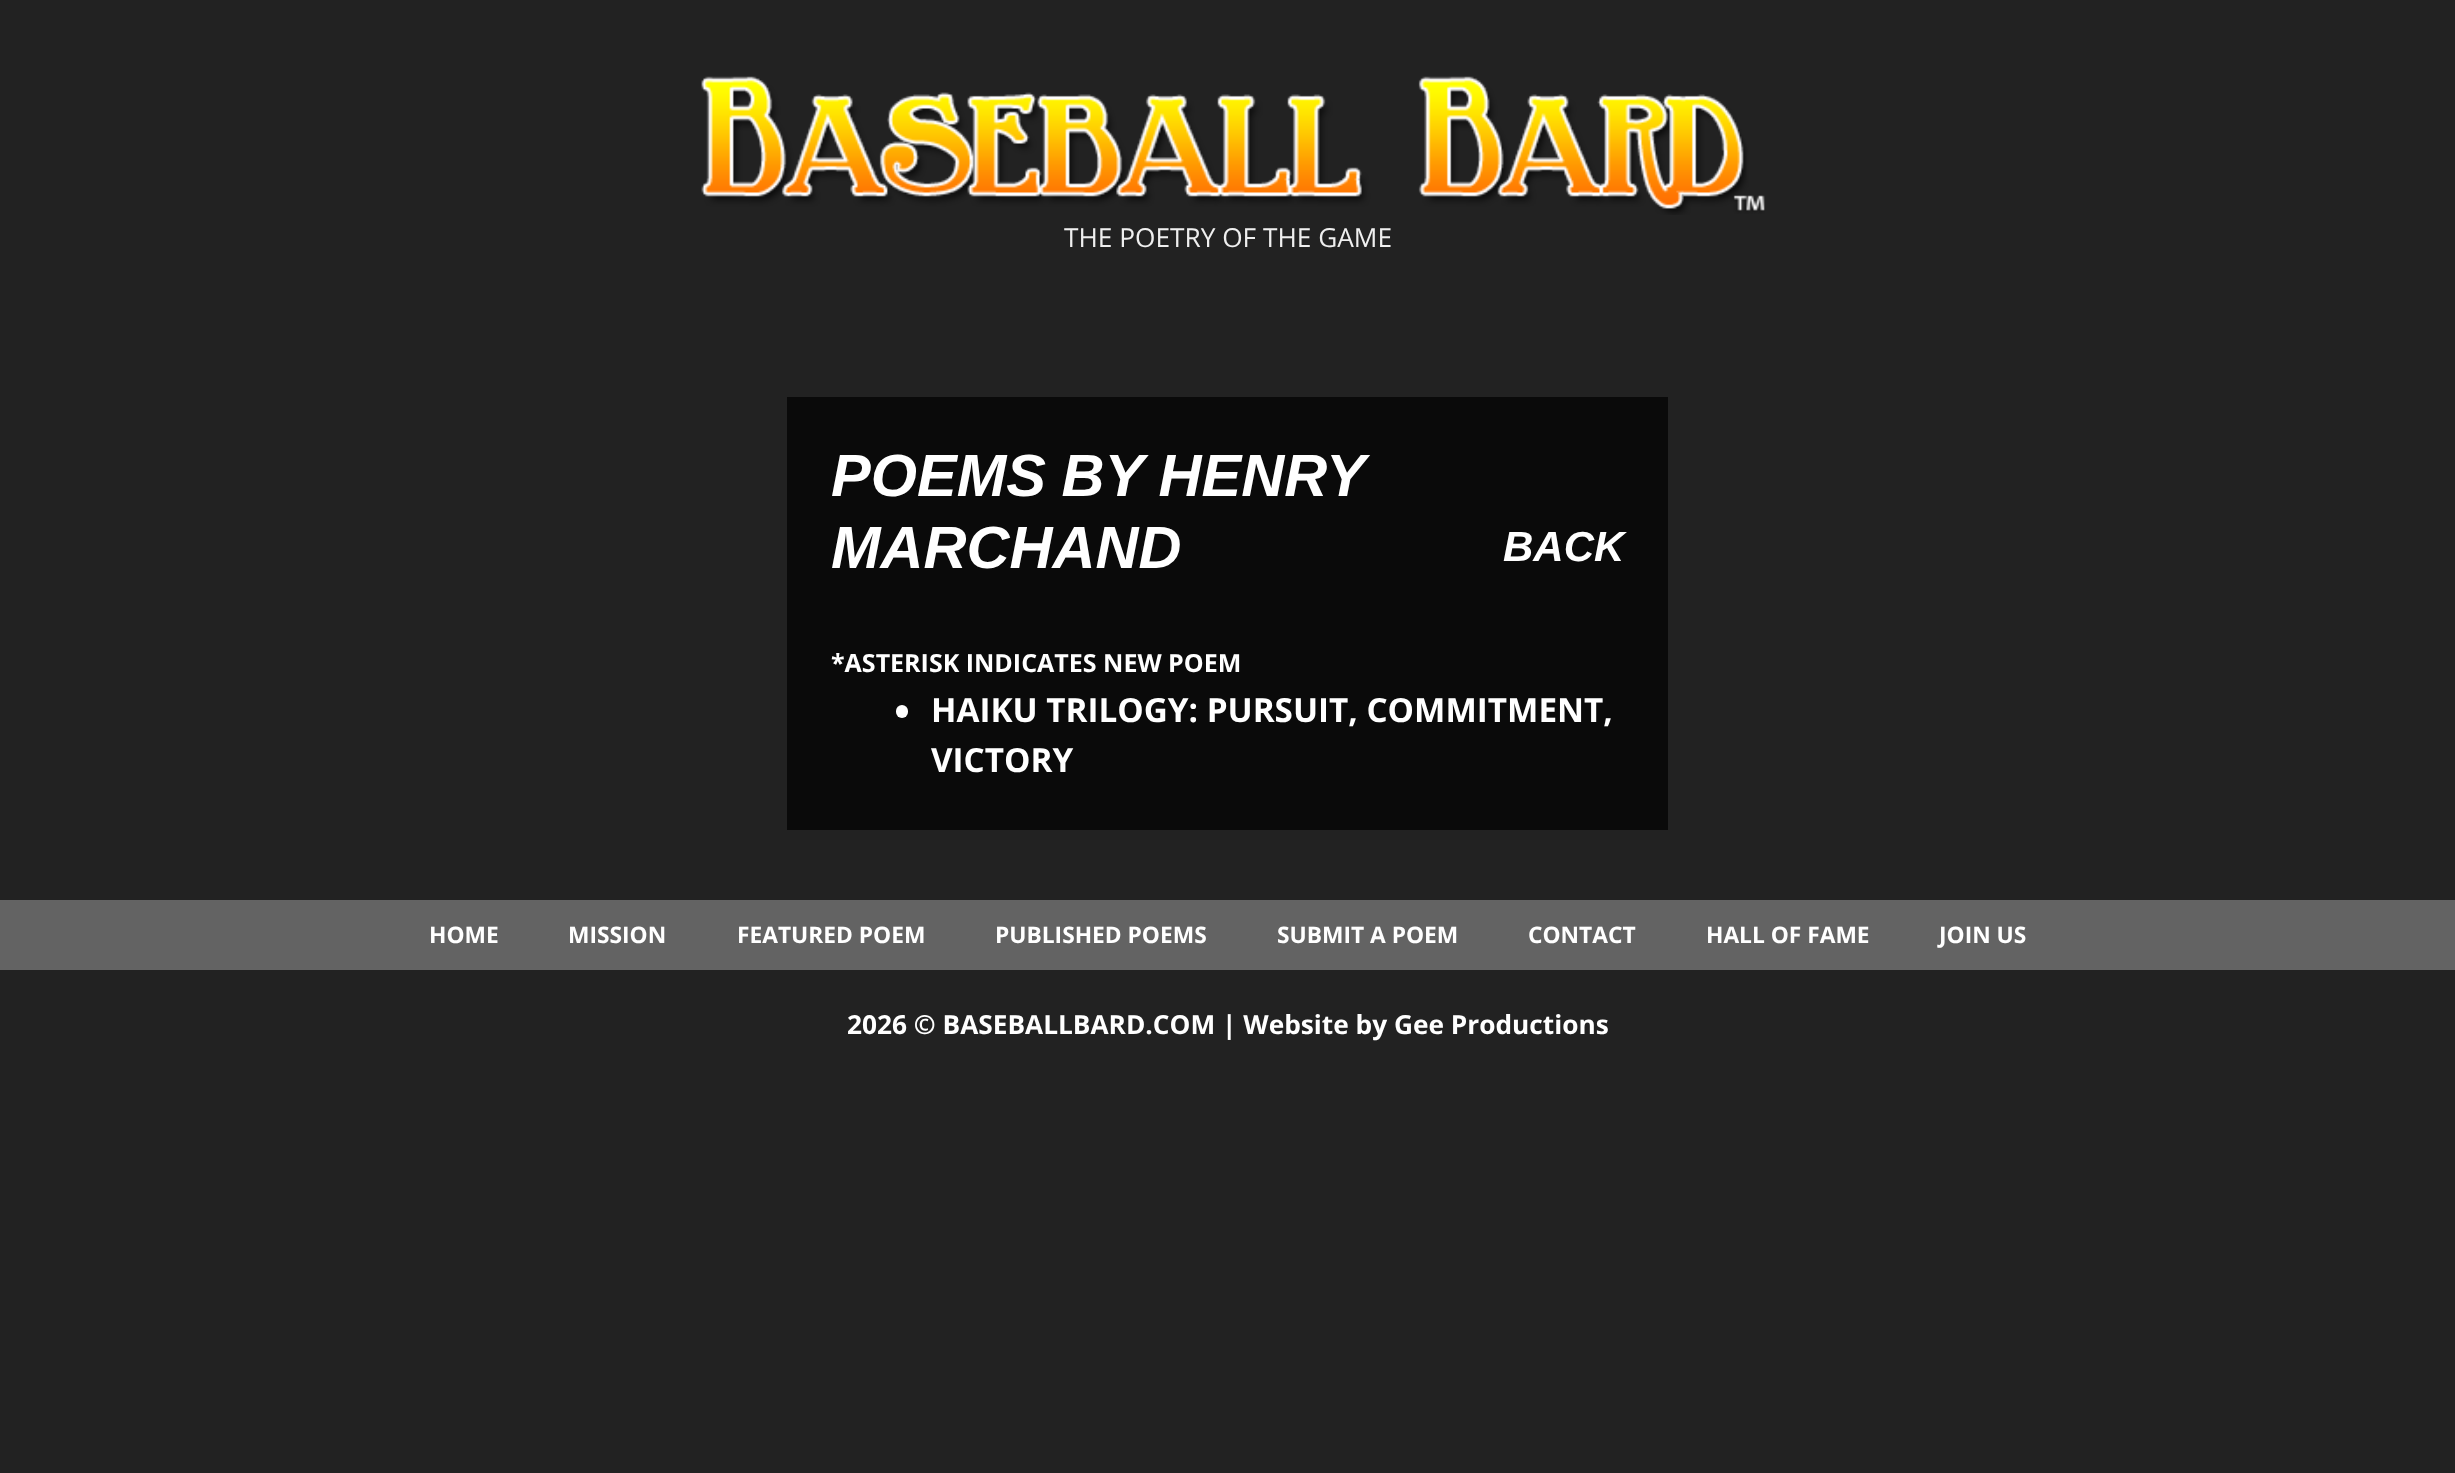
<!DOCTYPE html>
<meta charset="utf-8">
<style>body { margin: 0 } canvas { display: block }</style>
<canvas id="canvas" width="2455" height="1473"></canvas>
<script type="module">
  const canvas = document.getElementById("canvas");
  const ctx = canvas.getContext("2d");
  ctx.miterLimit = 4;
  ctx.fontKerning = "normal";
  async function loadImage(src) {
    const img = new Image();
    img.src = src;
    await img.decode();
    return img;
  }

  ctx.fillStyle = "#222222";
  ctx.fillRect(0, 0, 2455, 1473);
  ctx.drawImage(await loadImage("img1.png"), 701, 76, 1064, 139);
  ctx.font = "26.25px Open Sans";
  ctx.fillStyle = "#efefef";
  ctx.fillText("THE POETRY OF THE GAME", 1064, 247);
  ctx.fillStyle = "#0a0a0a";
  ctx.fillRect(787, 397, 881, 433);
  ctx.wordSpacing = "-1px";
  ctx.font = "italic bold 59.5px Liberation Sans";
  ctx.fillStyle = "#ffffff";
  ctx.fillText("POEMS BY HENRY", 831, 496);
  ctx.wordSpacing = "0px";
  ctx.fillText("MARCHAND", 831, 568);
  ctx.font = "italic bold 42px Liberation Sans";
  ctx.fillText("BACK", 1503, 561);
  ctx.font = "bold 25px Open Sans";
  ctx.fillText("*ASTERISK INDICATES NEW POEM", 831, 672);
  ctx.beginPath();
  ctx.roundRect(896, 705, 12, 13, 6);
  ctx.fill();
  ctx.font = "bold 33.25px Open Sans";
  ctx.fillText("HAIKU TRILOGY: PURSUIT, COMMITMENT,", 931, 722);
  ctx.fillText("VICTORY", 931, 772);
  ctx.fillStyle = "#636363";
  ctx.fillRect(0, 900, 2455, 70);
  ctx.font = "bold 22.75px Open Sans";
  ctx.fillStyle = "#ffffff";
  ctx.fillText("HOME", 429, 943);
  ctx.fillText("MISSION", 568, 943);
  ctx.fillText("FEATURED POEM", 737, 943);
  ctx.fillText("PUBLISHED POEMS", 995, 943);
  ctx.fillText("SUBMIT A POEM", 1277, 943);
  ctx.fillText("CONTACT", 1528, 943);
  ctx.fillText("HALL OF FAME", 1706, 943);
  ctx.fillText("JOIN US", 1939, 943);
  ctx.font = "bold 26.25px Open Sans";
  ctx.fillText("2026 © BASEBALLBARD.COM | Website by Gee Productions", 847, 1034);
</script>
